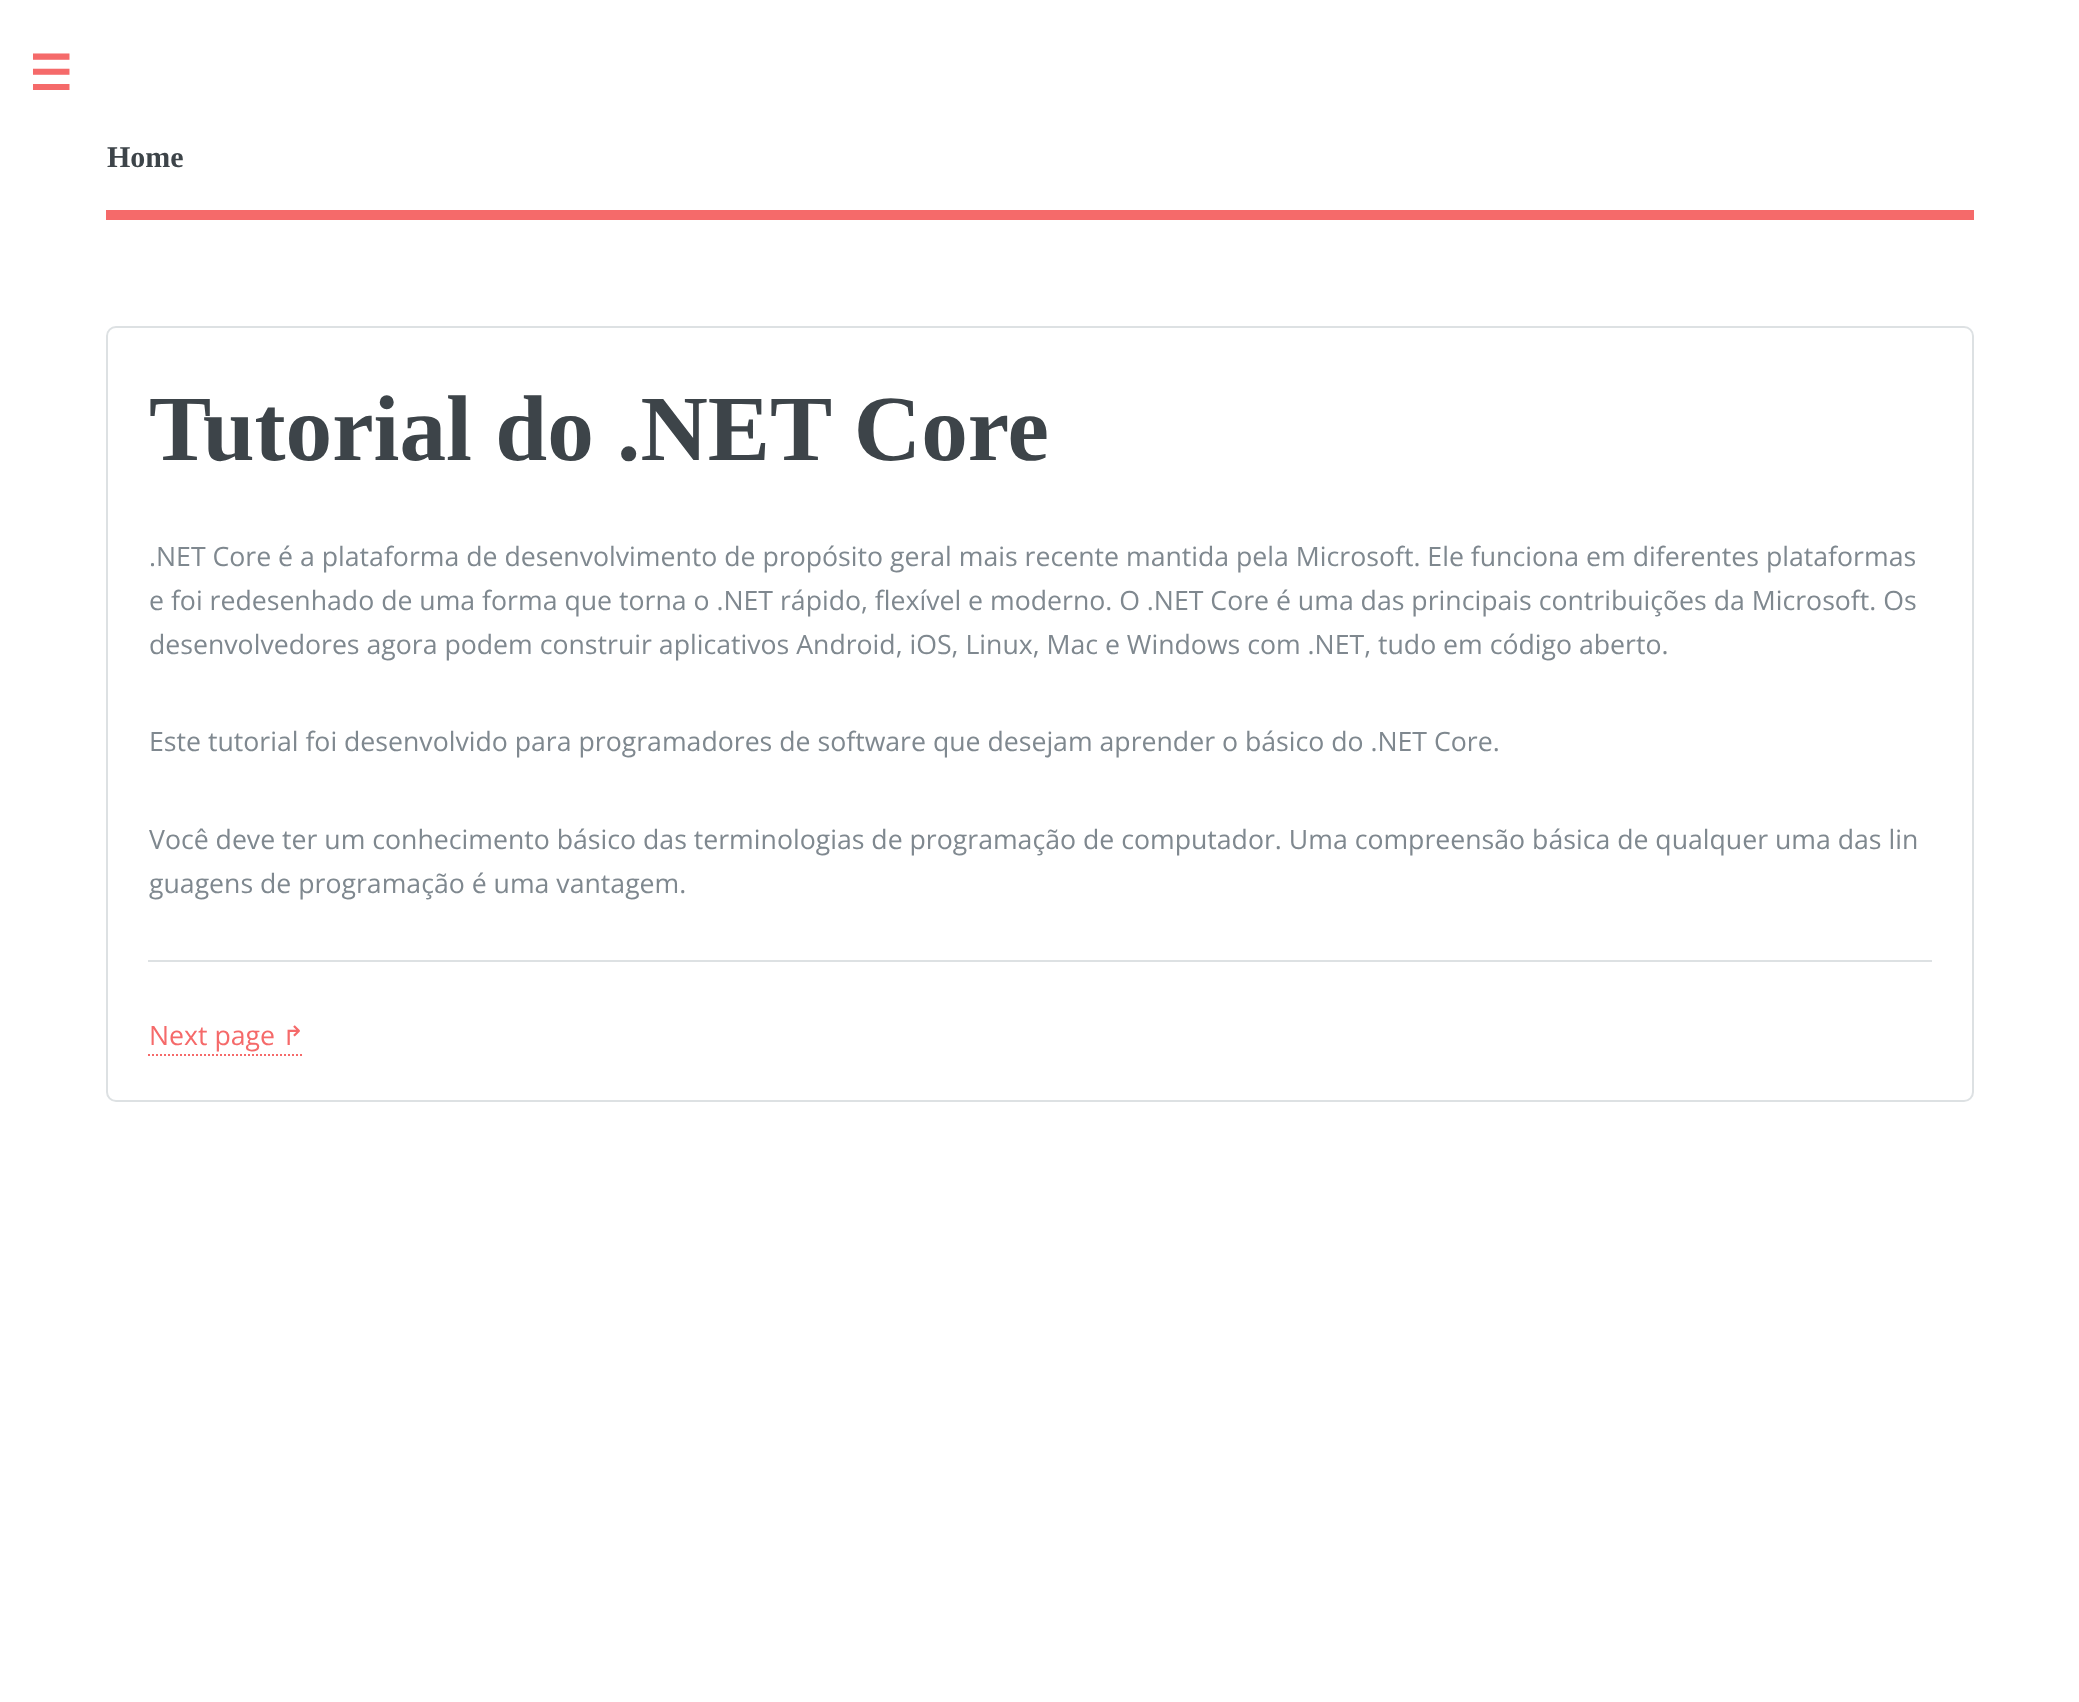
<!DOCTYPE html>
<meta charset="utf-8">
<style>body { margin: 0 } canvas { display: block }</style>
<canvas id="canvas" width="2079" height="1702"></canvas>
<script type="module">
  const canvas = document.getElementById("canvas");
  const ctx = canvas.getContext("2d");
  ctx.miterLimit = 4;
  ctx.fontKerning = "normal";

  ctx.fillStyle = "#ffffff";
  ctx.fillRect(0, 0, 2079, 1702);
  ctx.font = "bold 48px DejaVu Sans";
  ctx.fillStyle = "#f56a6a";
  ctx.fillText("☰", 29, 90);
  ctx.fillRect(106, 210, 1868, 10);
  ctx.font = "bold 30px Liberation Serif";
  ctx.fillStyle = "#3d4449";
  ctx.fillText("Home", 107, 167);
  ctx.beginPath();
  ctx.roundRect(107, 327, 1866, 774, 9);
  ctx.strokeStyle = "#dde1e3";
  ctx.lineWidth = 2;
  ctx.stroke();
  ctx.font = "bold 93.25px Liberation Serif";
  ctx.fillText("Tutorial do .NET Core", 149, 460);
  ctx.font = "26.67px Open Sans";
  ctx.fillStyle = "#7f888f";
  ctx.fillText(".NET Core é a plataforma de desenvolvimento de propósito geral mais recente mantida pela Microsoft. Ele funciona em diferentes plataformas", 149, 566);
  ctx.fillText("e foi redesenhado de uma forma que torna o .NET rápido, flexível e moderno. O .NET Core é uma das principais contribuições da Microsoft. Os", 149, 610);
  ctx.fillText("desenvolvedores agora podem construir aplicativos Android, iOS, Linux, Mac e Windows com .NET, tudo em código aberto.", 149, 654);
  ctx.fillText("Este tutorial foi desenvolvido para programadores de software que desejam aprender o básico do .NET Core.", 149, 751);
  ctx.fillText("Você deve ter um conhecimento básico das terminologias de programação de computador. Uma compreensão básica de qualquer uma das lin", 149, 849);
  ctx.fillText("guagens de programação é uma vantagem.", 149, 893);
  ctx.fillStyle = "#dde1e3";
  ctx.fillRect(148, 960, 1784, 2);
  ctx.fillStyle = "#f56a6a";
  ctx.fillText("Next page", 149, 1045);
  ctx.beginPath();
  ctx.moveTo(148, 1055);
  ctx.lineTo(304, 1055);
  ctx.strokeStyle = "#f56a6a";
  ctx.setLineDash([2, 2]);
  ctx.stroke();
  ctx.font = "26.67px DejaVu Sans";
  ctx.fillText("↱", 282, 1045);
</script>
